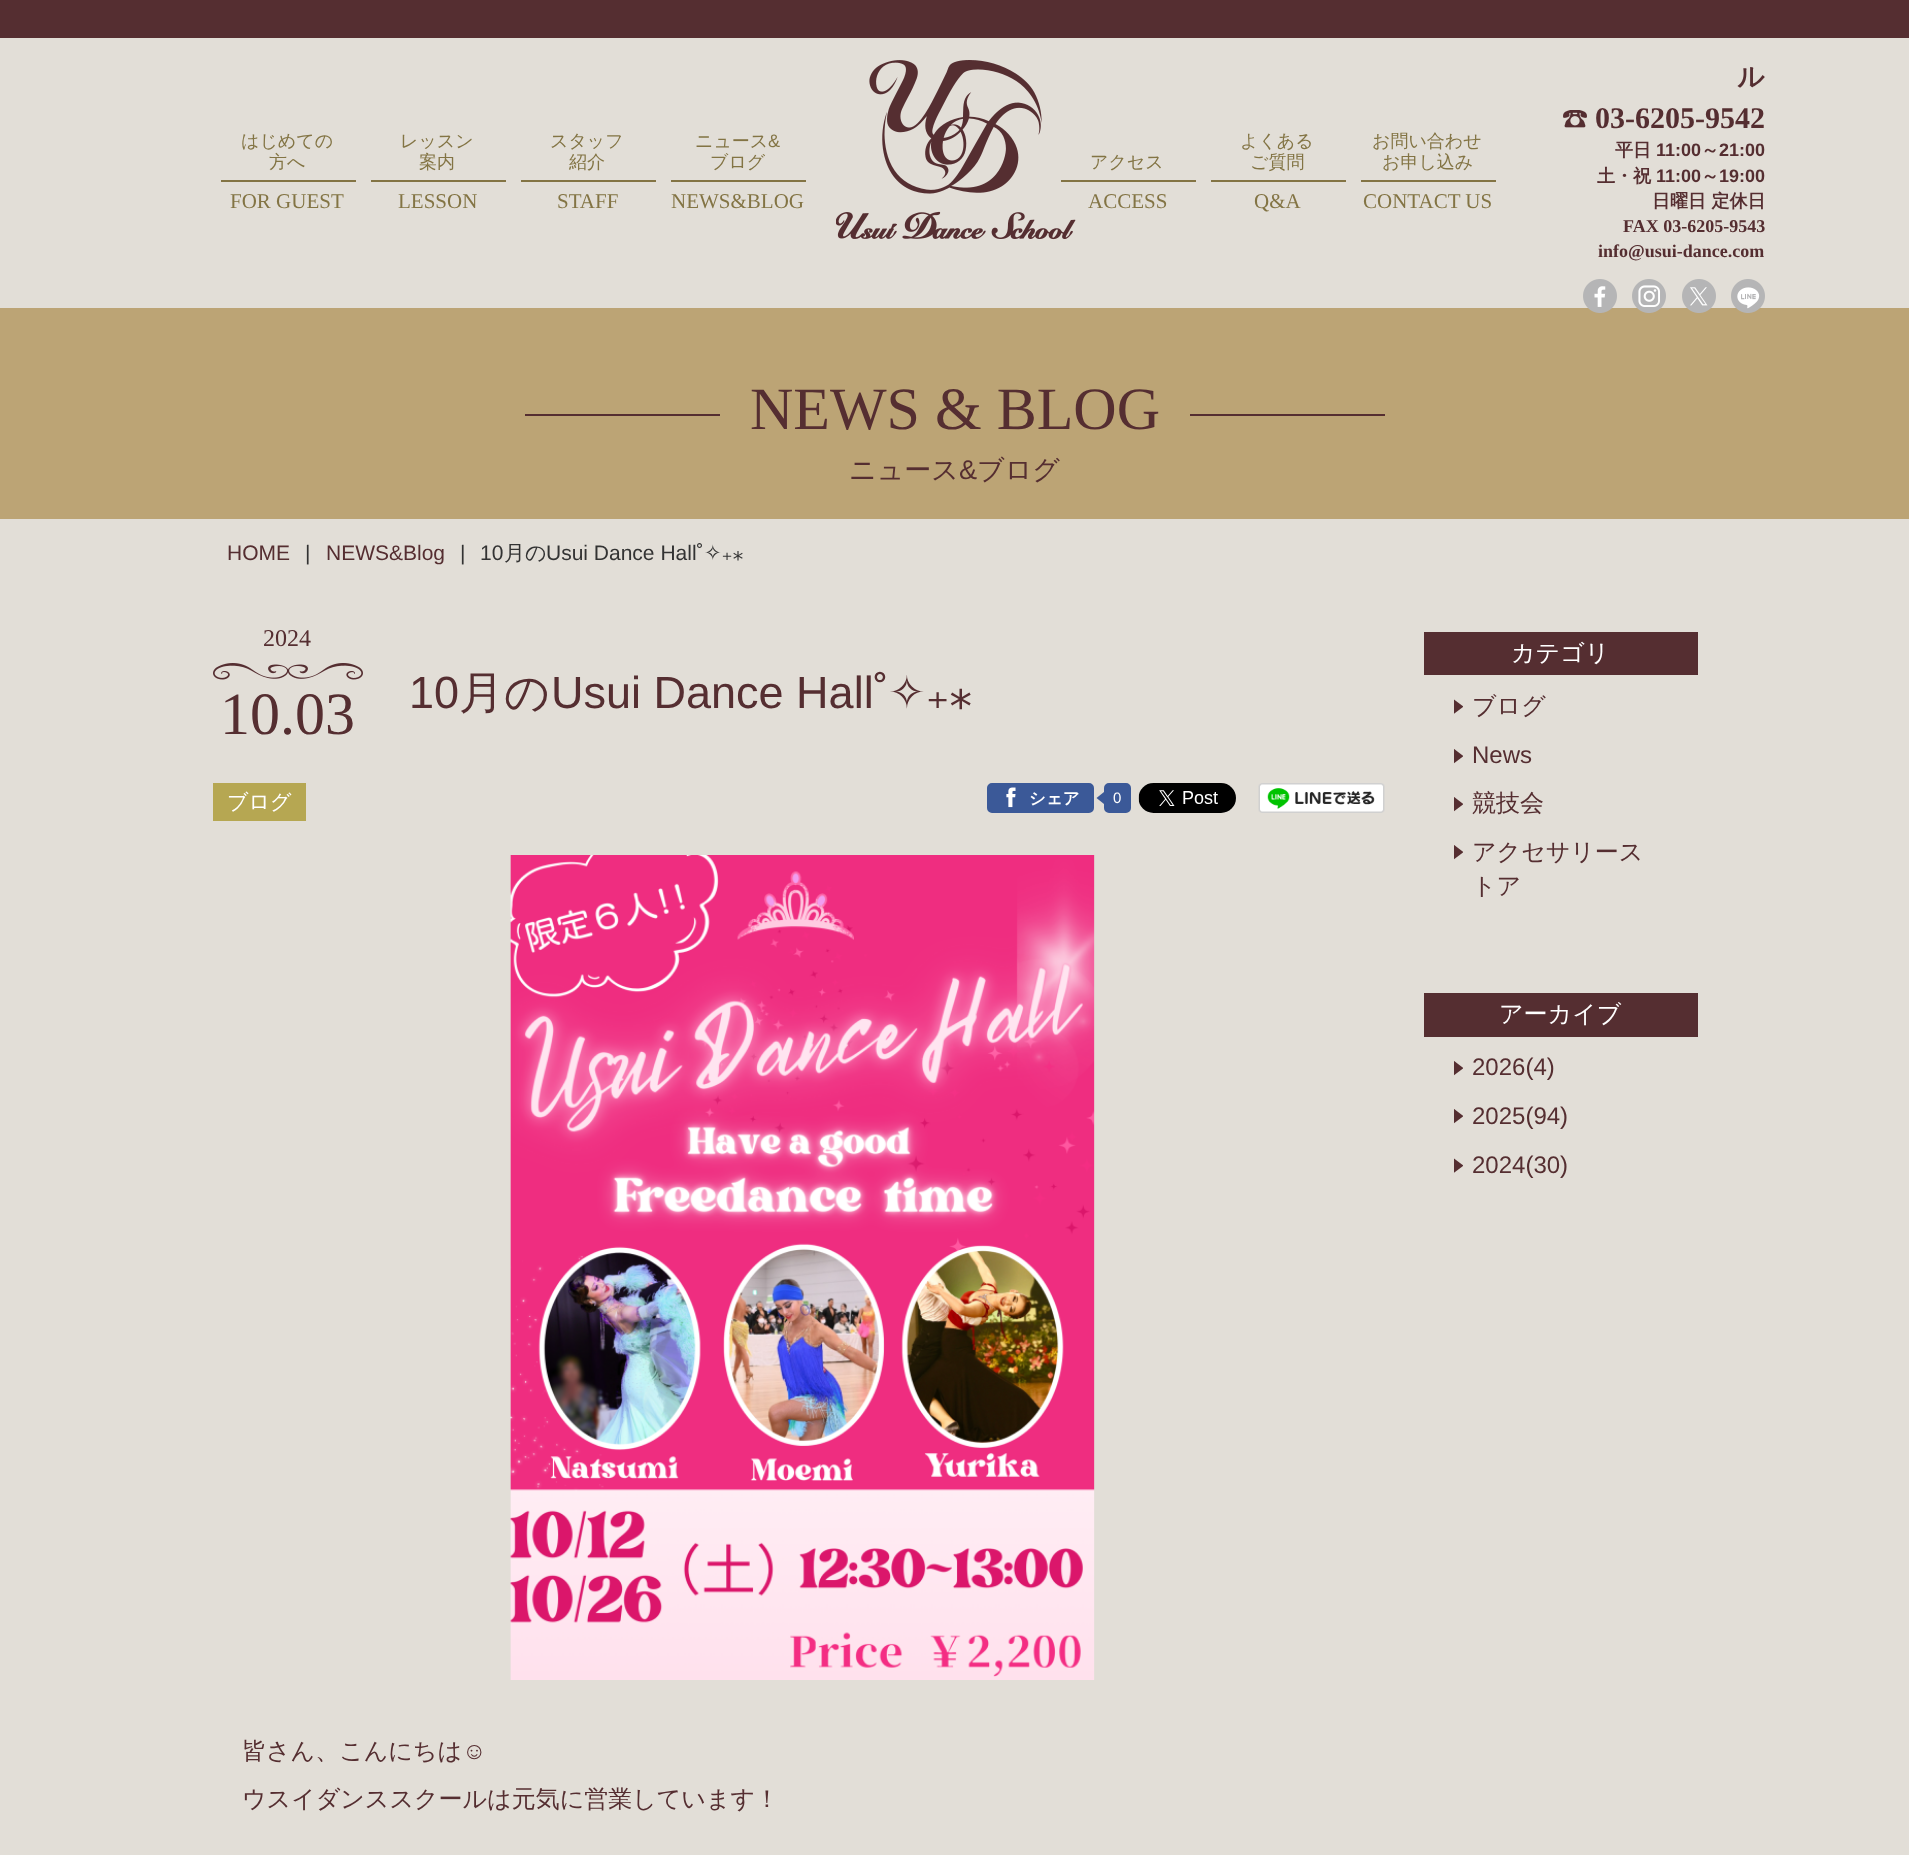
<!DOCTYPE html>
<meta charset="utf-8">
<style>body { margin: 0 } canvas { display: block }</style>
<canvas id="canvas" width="1909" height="1855"></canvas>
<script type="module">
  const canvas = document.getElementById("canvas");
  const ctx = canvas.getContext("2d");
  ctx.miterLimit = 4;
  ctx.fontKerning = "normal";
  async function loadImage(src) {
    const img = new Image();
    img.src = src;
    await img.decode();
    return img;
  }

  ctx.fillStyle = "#e2ded7";
  ctx.fillRect(0, 0, 1909, 1855);
  ctx.fillStyle = "#552e31";
  ctx.fillRect(0, 0, 1909, 38);
  ctx.fillStyle = "#837444";
  ctx.fillRect(1061, 180, 135, 2);
  ctx.drawImage(await loadImage("img1.png"), 836, 60, 240, 180);
  ctx.font = "500 18px WenQuanYi Zen Hei";
  ctx.fillText("はじめての", 241, 147);
  ctx.fillText("方へ", 269, 168);
  ctx.fillRect(221, 180, 135, 2);
  ctx.font = "21px Liberation Serif";
  ctx.fillText("FOR GUEST", 230, 208);
  ctx.font = "500 18px WenQuanYi Zen Hei";
  ctx.fillText("レッスン", 400, 147);
  ctx.fillText("案内", 419, 168);
  ctx.fillRect(371, 180, 135, 2);
  ctx.font = "21px Liberation Serif";
  ctx.fillText("LESSON", 398, 208);
  ctx.font = "500 18px WenQuanYi Zen Hei";
  ctx.fillText("スタッフ", 550, 147);
  ctx.fillText("紹介", 569, 168);
  ctx.fillRect(521, 180, 135, 2);
  ctx.font = "21px Liberation Serif";
  ctx.fillText("STAFF", 557, 208);
  ctx.font = "500 18px WenQuanYi Zen Hei";
  ctx.fillText("ニュース", 695, 147);
  ctx.font = "18px Liberation Sans";
  ctx.fillText("&", 768, 147);
  ctx.font = "500 18px WenQuanYi Zen Hei";
  ctx.fillText("ブログ", 710, 168);
  ctx.fillRect(671, 180, 135, 2);
  ctx.font = "21px Liberation Serif";
  ctx.fillText("NEWS&BLOG", 671, 208);
  ctx.font = "500 18px WenQuanYi Zen Hei";
  ctx.fillText("アクセス", 1090, 168);
  ctx.font = "21px Liberation Serif";
  ctx.fillText("ACCESS", 1088, 208);
  ctx.font = "500 18px WenQuanYi Zen Hei";
  ctx.fillText("よくある", 1240, 147);
  ctx.fillText("ご質問", 1250, 168);
  ctx.fillRect(1211, 180, 135, 2);
  ctx.font = "21px Liberation Serif";
  ctx.fillText("Q&A", 1254, 208);
  ctx.font = "500 18px WenQuanYi Zen Hei";
  ctx.fillText("お問い合わせ", 1372, 147);
  ctx.fillText("お申し込み", 1382, 168);
  ctx.fillRect(1361, 180, 135, 2);
  ctx.font = "21px Liberation Serif";
  ctx.fillText("CONTACT US", 1363, 208);
  ctx.font = "bold 27px WenQuanYi Zen Hei";
  ctx.fillStyle = "#552e31";
  ctx.fillText("ル", 1737, 86);
  ctx.drawImage(await loadImage("img2.png"), 1563, 110, 24, 18);
  ctx.font = "bold 30px Liberation Serif";
  ctx.fillText("03-6205-9542", 1595, 128);
  ctx.font = "bold 18px WenQuanYi Zen Hei";
  ctx.fillText("平日", 1615, 156);
  ctx.font = "bold 18px Liberation Sans";
  ctx.fillText("11:00", 1656, 156);
  ctx.font = "bold 18px WenQuanYi Zen Hei";
  ctx.fillText("～", 1701, 156);
  ctx.font = "bold 18px Liberation Sans";
  ctx.fillText("21:00", 1719, 156);
  ctx.font = "bold 18px WenQuanYi Zen Hei";
  ctx.fillText("土・祝", 1597, 182);
  ctx.font = "bold 18px Liberation Sans";
  ctx.fillText("11:00", 1656, 182);
  ctx.font = "bold 18px WenQuanYi Zen Hei";
  ctx.fillText("～", 1701, 182);
  ctx.font = "bold 18px Liberation Sans";
  ctx.fillText("19:00", 1719, 182);
  ctx.font = "bold 18px WenQuanYi Zen Hei";
  ctx.fillText("日曜日 定休日", 1652, 207);
  ctx.font = "bold 18px Liberation Serif";
  ctx.fillText("FAX 03-6205-9543", 1623, 232);
  ctx.fillText("info@usui-dance.com", 1598, 257);
  ctx.fillStyle = "#bca475";
  ctx.fillRect(0, 308, 1909, 211);
  ctx.drawImage(await loadImage("img3.png"), 1583, 279, 34, 34);
  ctx.drawImage(await loadImage("img4.png"), 1632, 279, 34, 34);
  ctx.drawImage(await loadImage("img5.png"), 1682, 279, 34, 34);
  ctx.drawImage(await loadImage("img6.png"), 1731, 279, 34, 34);
  ctx.fillStyle = "#552e31";
  ctx.fillRect(525, 414, 195, 2);
  ctx.font = "60px Liberation Serif";
  ctx.fillText("NEWS & BLOG", 750, 429);
  ctx.fillRect(1190, 414, 195, 2);
  ctx.font = "500 27px WenQuanYi Zen Hei";
  ctx.fillText("ニュース", 849, 479);
  ctx.font = "27px Liberation Sans";
  ctx.fillText("&", 959, 479);
  ctx.font = "500 27px WenQuanYi Zen Hei";
  ctx.fillText("ブログ", 977, 479);
  ctx.font = "21px Liberation Sans";
  ctx.fillText("HOME", 227, 560);
  ctx.fillStyle = "#333333";
  ctx.fillText("|", 305, 560);
  ctx.fillStyle = "#552e31";
  ctx.fillText("NEWS&Blog", 326, 560);
  ctx.fillStyle = "#333333";
  ctx.fillText("|", 460, 560);
  ctx.fillText("10", 480, 560);
  ctx.font = "500 21px WenQuanYi Zen Hei";
  ctx.fillText("月の", 504, 560);
  ctx.font = "21px Liberation Sans";
  ctx.fillText("Usui Dance Hall˚", 546, 560);
  ctx.font = "21px DejaVu Sans";
  ctx.fillText("✧₊⁎", 704, 560);
  ctx.font = "24px Liberation Serif";
  ctx.fillStyle = "#552e31";
  ctx.fillText("2024", 263, 646);
  ctx.drawImage(await loadImage("img7.png"), 213, 663, 150, 17);
  ctx.font = "60px Liberation Serif";
  ctx.fillText("10.03", 220, 734);
  ctx.font = "45px Liberation Sans";
  ctx.fillText("10", 409, 708);
  ctx.font = "500 45px WenQuanYi Zen Hei";
  ctx.fillText("月の", 459, 708);
  ctx.font = "45px Liberation Sans";
  ctx.fillText("Usui Dance Hall˚", 551, 708);
  ctx.font = "45px DejaVu Sans";
  ctx.fillText("✧₊⁎", 888, 708);
  ctx.fillStyle = "#b6a752";
  ctx.fillRect(213, 783, 93, 38);
  ctx.font = "500 21px WenQuanYi Zen Hei";
  ctx.fillStyle = "#ffffff";
  ctx.fillText("ブログ", 227, 809);
  ctx.fillStyle = "#3b5998";
  ctx.beginPath();
  ctx.roundRect(988, 784, 105, 28, 4);
  ctx.fill();
  ctx.strokeStyle = "#3b5998";
  ctx.lineWidth = 2;
  ctx.stroke();
  ctx.drawImage(await loadImage("img8.png"), 1006, 787, 10, 21);
  ctx.font = "bold 16.5px WenQuanYi Zen Hei";
  ctx.fillStyle = "#ffffff";
  ctx.fillText("シェア", 1029, 804);
  ctx.fillStyle = "#3b5998";
  ctx.beginPath();
  ctx.roundRect(1105, 784, 25, 28, 4);
  ctx.fill();
  ctx.stroke();
  ctx.beginPath();
  ctx.moveTo(1104, 792);
  ctx.lineTo(1104, 804);
  ctx.lineTo(1096.5, 798);
  ctx.closePath();
  ctx.fill();
  ctx.font = "15px Liberation Sans";
  ctx.fillStyle = "#ffffff";
  ctx.fillText("0", 1113, 803);
  ctx.drawImage(await loadImage("img9.png"), 1138, 783, 98, 30);
  ctx.drawImage(await loadImage("img10.png"), 1258, 783, 127, 30);
  ctx.drawImage(await loadImage("img11.png"), 510, 855, 585, 825);
  ctx.font = "500 24px WenQuanYi Zen Hei";
  ctx.fillStyle = "#552e31";
  ctx.fillText("皆さん、こんにちは", 242, 1759);
  ctx.font = "24px Liberation Sans";
  ctx.fillText("☺︎", 462, 1759);
  ctx.font = "500 24px WenQuanYi Zen Hei";
  ctx.fillText("ウスイダンススクールは元気に営業しています！", 242, 1807);
  ctx.fillRect(1424, 632, 274, 43);
  ctx.fillStyle = "#ffffff";
  ctx.fillText("カテゴリ", 1511, 661);
  ctx.save();
  ctx.beginPath();
  ctx.rect(1454, 699, 9, 15);
  ctx.clip();
  ctx.fillStyle = "#552e31";
  ctx.beginPath();
  ctx.moveTo(1453.5, 699);
  ctx.lineTo(1463.5, 706.5);
  ctx.lineTo(1453.5, 714);
  ctx.closePath();
  ctx.fill();
  ctx.restore();
  ctx.fillStyle = "#552e31";
  ctx.fillText("ブログ", 1472, 714);
  ctx.save();
  ctx.beginPath();
  ctx.rect(1454, 749, 9, 15);
  ctx.clip();
  ctx.beginPath();
  ctx.moveTo(1453.5, 748.5);
  ctx.lineTo(1463.5, 756);
  ctx.lineTo(1453.5, 763.5);
  ctx.closePath();
  ctx.fill();
  ctx.restore();
  ctx.font = "24px Liberation Sans";
  ctx.fillText("News", 1472, 763);
  ctx.save();
  ctx.beginPath();
  ctx.rect(1454, 797, 9, 15);
  ctx.clip();
  ctx.beginPath();
  ctx.moveTo(1453.5, 796.5);
  ctx.lineTo(1463.5, 804);
  ctx.lineTo(1453.5, 811.5);
  ctx.closePath();
  ctx.fill();
  ctx.restore();
  ctx.font = "500 24px WenQuanYi Zen Hei";
  ctx.fillText("競技会", 1472, 811);
  ctx.save();
  ctx.beginPath();
  ctx.rect(1454, 845, 9, 15);
  ctx.clip();
  ctx.beginPath();
  ctx.moveTo(1453.5, 844.5);
  ctx.lineTo(1463.5, 852);
  ctx.lineTo(1453.5, 859.5);
  ctx.closePath();
  ctx.fill();
  ctx.restore();
  ctx.fillText("アクセサリース", 1472, 860);
  ctx.fillText("トア", 1472, 894);
  ctx.fillRect(1424, 993, 274, 44);
  ctx.fillStyle = "#ffffff";
  ctx.fillText("アーカイブ", 1499, 1022);
  ctx.save();
  ctx.beginPath();
  ctx.rect(1454, 1061, 9, 15);
  ctx.clip();
  ctx.fillStyle = "#552e31";
  ctx.beginPath();
  ctx.moveTo(1453.5, 1060.5);
  ctx.lineTo(1463.5, 1068);
  ctx.lineTo(1453.5, 1075.5);
  ctx.closePath();
  ctx.fill();
  ctx.restore();
  ctx.font = "24px Liberation Sans";
  ctx.fillStyle = "#552e31";
  ctx.fillText("2026(4)", 1472, 1075);
  ctx.save();
  ctx.beginPath();
  ctx.rect(1454, 1109, 9, 15);
  ctx.clip();
  ctx.beginPath();
  ctx.moveTo(1453.5, 1108.5);
  ctx.lineTo(1463.5, 1116);
  ctx.lineTo(1453.5, 1123.5);
  ctx.closePath();
  ctx.fill();
  ctx.restore();
  ctx.fillText("2025(94)", 1472, 1124);
  ctx.save();
  ctx.beginPath();
  ctx.rect(1454, 1158, 9, 15);
  ctx.clip();
  ctx.beginPath();
  ctx.moveTo(1453.5, 1158);
  ctx.lineTo(1463.5, 1165.5);
  ctx.lineTo(1453.5, 1173);
  ctx.closePath();
  ctx.fill();
  ctx.restore();
  ctx.fillText("2024(30)", 1472, 1173);
</script>
